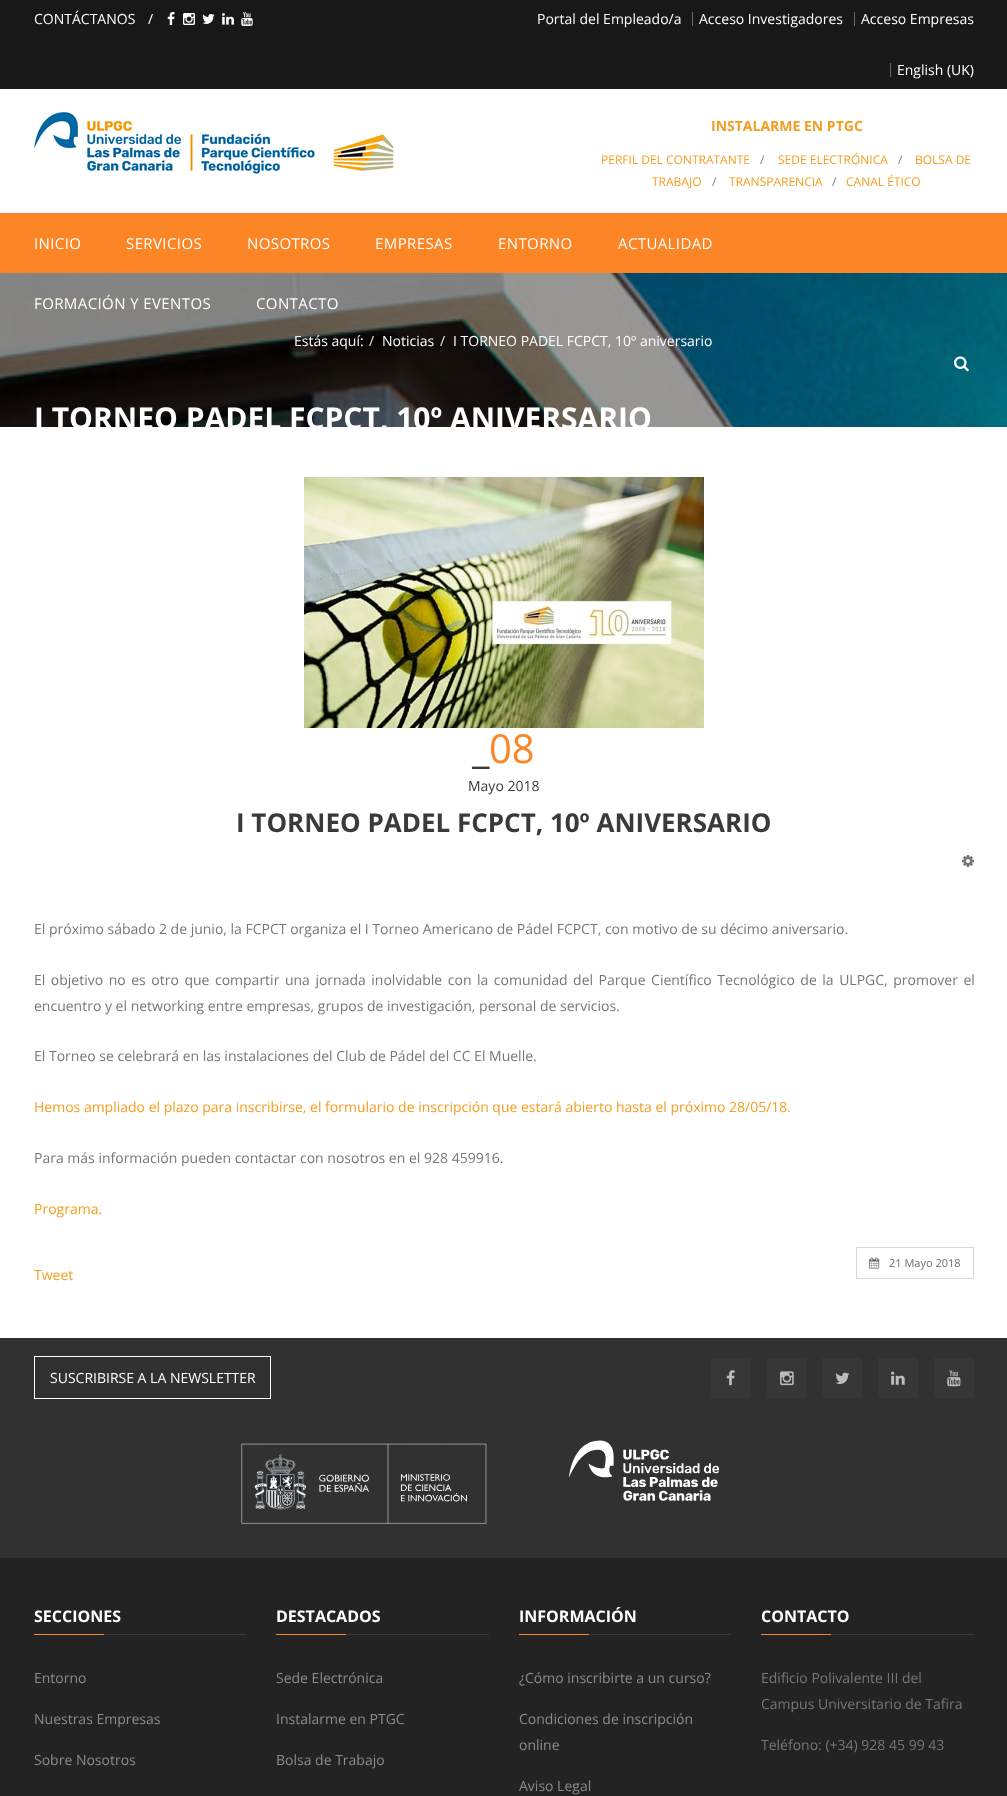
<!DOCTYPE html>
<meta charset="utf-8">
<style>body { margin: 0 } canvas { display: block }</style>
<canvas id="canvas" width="1007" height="1796"></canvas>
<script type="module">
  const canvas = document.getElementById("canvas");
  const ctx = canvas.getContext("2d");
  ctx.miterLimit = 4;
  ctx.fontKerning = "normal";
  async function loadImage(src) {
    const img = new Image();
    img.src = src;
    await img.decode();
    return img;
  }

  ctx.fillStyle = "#ffffff";
  ctx.fillRect(0, 0, 1007, 1796);
  ctx.fillStyle = "#181818";
  ctx.fillRect(0, 0, 1007, 89);
  ctx.font = "14px Open Sans";
  ctx.fillStyle = "#ffffff";
  ctx.fillText("CONTÁCTANOS", 34, 24);
  ctx.fillText("/", 148, 24);
  ctx.drawImage(await loadImage("img1.png"), 167, 12, 8, 13);
  ctx.drawImage(await loadImage("img2.png"), 183, 13, 12, 12);
  ctx.drawImage(await loadImage("img3.png"), 202, 14, 13, 10);
  ctx.drawImage(await loadImage("img4.png"), 222, 13, 12, 12);
  ctx.drawImage(await loadImage("img5.png"), 241, 12, 12, 14);
  ctx.fillText("Portal del Empleado/a", 537, 24);
  ctx.fillStyle = "#696969";
  ctx.fillRect(692, 12, 1, 14);
  ctx.fillStyle = "#ffffff";
  ctx.fillText("Acceso Investigadores", 699, 24);
  ctx.fillStyle = "#696969";
  ctx.fillRect(854, 12, 1, 14);
  ctx.fillStyle = "#ffffff";
  ctx.fillText("Acceso Empresas", 861, 24);
  ctx.fillStyle = "#696969";
  ctx.fillRect(890, 63, 1, 14);
  ctx.fillStyle = "#ffffff";
  ctx.fillText("English (UK)", 897, 75);
  ctx.drawImage(await loadImage("img6.png"), 34, 112, 360, 62);
  ctx.font = "bold 14px Open Sans";
  ctx.fillStyle = "#f59d20";
  ctx.fillText("INSTALARME EN PTGC", 711, 131);
  ctx.font = "12px Open Sans";
  ctx.fillText("PERFIL DEL CONTRATANTE", 601, 164);
  ctx.fillStyle = "#777777";
  ctx.fillText("/", 760, 164);
  ctx.fillStyle = "#f59d20";
  ctx.fillText("SEDE ELECTRÓNICA", 778, 164);
  ctx.fillStyle = "#777777";
  ctx.fillText("/", 898, 164);
  ctx.fillStyle = "#f59d20";
  ctx.fillText("BOLSA DE", 915, 164);
  ctx.fillText("TRABAJO", 652, 186);
  ctx.fillStyle = "#777777";
  ctx.fillText("/", 712, 186);
  ctx.fillStyle = "#f59d20";
  ctx.fillText("TRANSPARENCIA", 729, 186);
  ctx.fillStyle = "#777777";
  ctx.fillText("/", 832, 186);
  ctx.fillStyle = "#f59d20";
  ctx.fillText("CANAL ÉTICO", 846, 186);
  ctx.fillStyle = "#fc8526";
  ctx.fillRect(0, 213, 1007, 60);
  ctx.letterSpacing = "0.4px";
  ctx.font = "15px Open Sans";
  ctx.fillStyle = "#ffffff";
  ctx.fillText("INICIO", 34, 249);
  ctx.fillText("SERVICIOS", 126, 249);
  ctx.fillText("NOSOTROS", 247, 249);
  ctx.fillText("EMPRESAS", 375, 249);
  ctx.fillText("ENTORNO", 498, 249);
  ctx.fillText("ACTUALIDAD", 618, 249);
  ctx.drawImage(await loadImage("img8.png"), 0, 273, 1007, 154);
  ctx.fillText("FORMACIÓN Y EVENTOS", 34, 309);
  ctx.fillText("CONTACTO", 256, 309);
  ctx.drawImage(await loadImage("img7.png"), 954, 356, 15, 16);
  ctx.letterSpacing = "0px";
  ctx.font = "14px Open Sans";
  ctx.fillText("Estás aquí:", 294, 346);
  ctx.fillStyle = "#e6e6e6";
  ctx.fillText("/", 369, 346);
  ctx.fillStyle = "#ffffff";
  ctx.fillText("Noticias", 382, 346);
  ctx.fillStyle = "#e6e6e6";
  ctx.fillText("/", 440, 346);
  ctx.fillStyle = "#ffffff";
  ctx.fillText("I TORNEO PADEL FCPCT, 10º aniversario", 453, 346);
  ctx.font = "bold 30px Open Sans";
  ctx.fillText("I TORNEO PADEL FCPCT, 10º ANIVERSARIO", 34, 429);
  ctx.drawImage(await loadImage("img9.png"), 304, 477, 400, 251);
  ctx.font = "40px Open Sans";
  ctx.fillStyle = "#fc8526";
  ctx.fillText("08", 489, 763);
  ctx.fillStyle = "#3a3a3a";
  ctx.fillText("_", 472, 763);
  ctx.font = "14px Open Sans";
  ctx.fillText("Mayo 2018", 468, 791);
  ctx.font = "bold 26px Open Sans";
  ctx.fillText("I TORNEO PADEL FCPCT, 10º ANIVERSARIO", 236, 832);
  ctx.drawImage(await loadImage("img10.png"), 962, 855, 12, 12);
  ctx.font = "14px Open Sans";
  ctx.fillStyle = "#777777";
  ctx.fillText("El próximo sábado 2 de junio, la FCPCT organiza el I Torneo Americano de Pádel FCPCT, con motivo de su décimo aniversario.", 34, 934);
  ctx.wordSpacing = "1.9px";
  ctx.fillText("El objetivo no es otro que compartir una jornada inolvidable con la comunidad del Parque Científico Tecnológico de la ULPGC, promover el", 34, 985);
  ctx.wordSpacing = "0px";
  ctx.fillText("encuentro y el networking entre empresas, grupos de investigación, personal de servicios.", 34, 1011);
  ctx.fillText("El Torneo se celebrará en las instalaciones del Club de Pádel del CC El Muelle.", 34, 1061);
  ctx.fillStyle = "#f59d20";
  ctx.fillText("Hemos ampliado el plazo para inscribirse, el formulario de inscripción que estará abierto hasta el próximo 28/05/18.", 34, 1112);
  ctx.fillStyle = "#777777";
  ctx.fillText("Para más información pueden contactar con nosotros en el 928 459916.", 34, 1163);
  ctx.fillStyle = "#f59d20";
  ctx.fillText("Programa.", 34, 1214);
  ctx.strokeStyle = "#d7d7d7";
  ctx.strokeRect(856.5, 1247.5, 117, 31);
  ctx.drawImage(await loadImage("img11.png"), 869, 1257, 11, 12);
  ctx.font = "11px Open Sans";
  ctx.fillStyle = "#6c6c6c";
  ctx.fillText("21 Mayo 2018", 889, 1267);
  ctx.font = "14px Open Sans";
  ctx.fillStyle = "#f59d20";
  ctx.fillText("Tweet", 34, 1280);
  ctx.fillStyle = "#313131";
  ctx.fillRect(0, 1338, 1007, 220);
  ctx.strokeStyle = "#ffffff";
  ctx.strokeRect(34.5, 1356.5, 236, 42);
  ctx.fillStyle = "#ffffff";
  ctx.fillText("SUSCRIBIRSE A LA NEWSLETTER", 50, 1383);
  ctx.drawImage(await loadImage("img12.png"), 241, 1443, 246, 81);
  ctx.fillStyle = "#373737";
  ctx.fillRect(711, 1358, 40, 40);
  ctx.drawImage(await loadImage("img13.png"), 726, 1370, 9, 16);
  ctx.fillRect(767, 1358, 40, 40);
  ctx.drawImage(await loadImage("img14.png"), 780, 1371, 14, 15);
  ctx.fillRect(822, 1358, 40, 40);
  ctx.drawImage(await loadImage("img15.png"), 835, 1372, 15, 12);
  ctx.fillRect(878, 1358, 40, 40);
  ctx.drawImage(await loadImage("img16.png"), 891, 1371, 14, 14);
  ctx.fillRect(934, 1358, 40, 40);
  ctx.drawImage(await loadImage("img17.png"), 947, 1370, 14, 17);
  ctx.drawImage(await loadImage("img18.png"), 569, 1440, 151, 61);
  ctx.fillStyle = "#232323";
  ctx.fillRect(0, 1558, 1007, 238);
  ctx.fillStyle = "#3a3a3a";
  ctx.fillRect(104, 1634, 142, 1);
  ctx.font = "bold 16px Open Sans";
  ctx.fillStyle = "#ffffff";
  ctx.fillText("SECCIONES", 34, 1622);
  ctx.fillStyle = "#fc8526";
  ctx.fillRect(34, 1634, 70, 1);
  ctx.font = "14px Open Sans";
  ctx.fillStyle = "#8c8c8c";
  ctx.fillText("Entorno", 34, 1683);
  ctx.fillText("Nuestras Empresas", 34, 1724);
  ctx.fillText("Sobre Nosotros", 34, 1765);
  ctx.fillStyle = "#3a3a3a";
  ctx.fillRect(346, 1634, 143, 1);
  ctx.font = "bold 16px Open Sans";
  ctx.fillStyle = "#ffffff";
  ctx.fillText("DESTACADOS", 276, 1622);
  ctx.fillStyle = "#fc8526";
  ctx.fillRect(276, 1634, 70, 1);
  ctx.font = "14px Open Sans";
  ctx.fillStyle = "#8c8c8c";
  ctx.fillText("Sede Electrónica", 276, 1683);
  ctx.fillText("Instalarme en PTGC", 276, 1724);
  ctx.fillText("Bolsa de Trabajo", 276, 1765);
  ctx.fillStyle = "#3a3a3a";
  ctx.fillRect(589, 1634, 142, 1);
  ctx.font = "bold 16px Open Sans";
  ctx.fillStyle = "#ffffff";
  ctx.fillText("INFORMACIÓN", 519, 1622);
  ctx.fillStyle = "#fc8526";
  ctx.fillRect(519, 1634, 70, 1);
  ctx.font = "14px Open Sans";
  ctx.fillStyle = "#8c8c8c";
  ctx.fillText("¿Cómo inscribirte a un curso?", 519, 1683);
  ctx.fillText("Condiciones de inscripción", 519, 1724);
  ctx.fillText("online", 519, 1750);
  ctx.fillText("Aviso Legal", 519, 1791);
  ctx.fillStyle = "#3a3a3a";
  ctx.fillRect(831, 1634, 143, 1);
  ctx.font = "bold 16px Open Sans";
  ctx.fillStyle = "#ffffff";
  ctx.fillText("CONTACTO", 761, 1622);
  ctx.fillStyle = "#fc8526";
  ctx.fillRect(761, 1634, 70, 1);
  ctx.font = "14px Open Sans";
  ctx.fillStyle = "#777777";
  ctx.fillText("Edificio Polivalente III del", 761, 1683);
  ctx.fillText("Campus Universitario de Tafira", 761, 1709);
  ctx.fillText("Teléfono: (+34) 928 45 99 43", 761, 1750);
</script>
